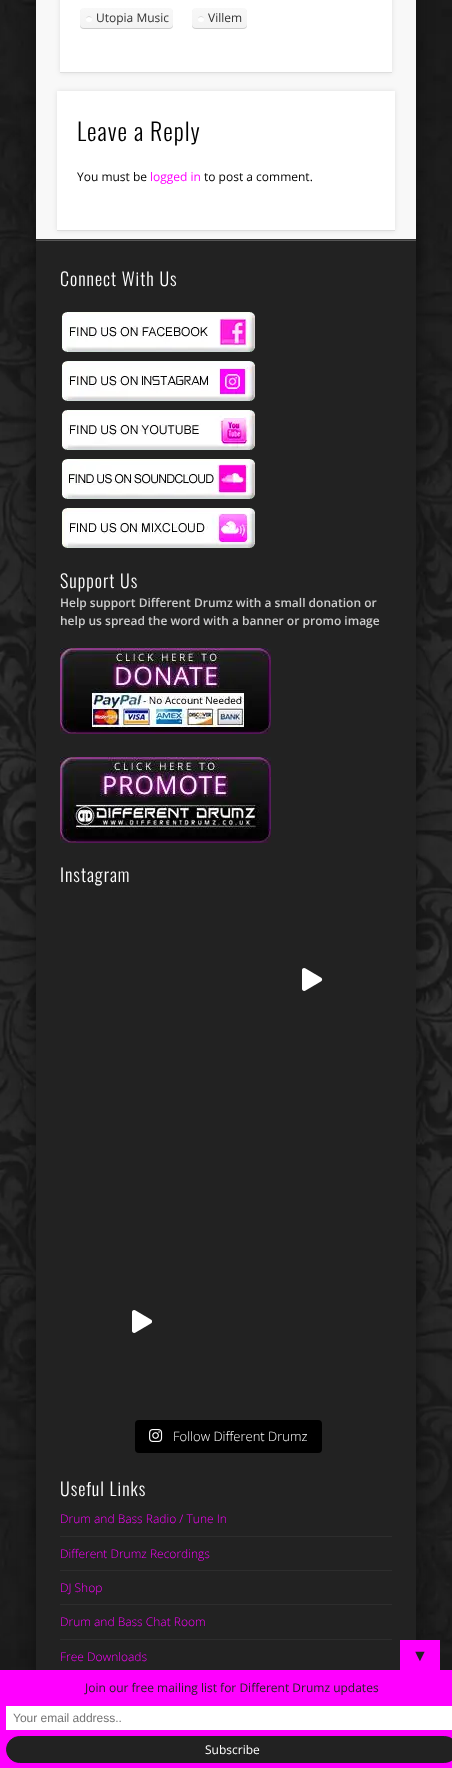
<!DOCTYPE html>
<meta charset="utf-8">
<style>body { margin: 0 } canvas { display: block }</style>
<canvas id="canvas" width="452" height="1768"></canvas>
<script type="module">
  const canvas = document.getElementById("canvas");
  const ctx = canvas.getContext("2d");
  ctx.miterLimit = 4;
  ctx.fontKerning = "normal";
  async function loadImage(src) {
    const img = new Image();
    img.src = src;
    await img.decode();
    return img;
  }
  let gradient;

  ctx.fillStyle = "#ffffff";
  ctx.fillRect(0, 0, 452, 1768);
  ctx.drawImage(await loadImage("img1.png"), 0, 0, 452, 1670);
  ctx.fillStyle = "rgba(0, 0, 0, 0.4)";
  ctx.filter = "blur(9px)";
  ctx.beginPath();
  ctx.rect(36, -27, 380, 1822);
  ctx.fill();
  ctx.filter = "none";
  ctx.fillStyle = "#f8f8f8";
  ctx.fillRect(36, 0, 380, 239);
  ctx.fillStyle = "rgba(0, 0, 0, 0.1)";
  ctx.filter = "blur(2.5px)";
  ctx.beginPath();
  ctx.rect(60, -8, 332, 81);
  ctx.fill();
  ctx.filter = "none";
  ctx.fillStyle = "#ffffff";
  ctx.fillRect(60, 0, 332, 72);
  ctx.fillStyle = "#dedede";
  ctx.fillRect(60, 72, 332, 1);
  ctx.fillStyle = "rgba(0, 0, 0, 0.2)";
  ctx.filter = "blur(0.5px)";
  ctx.beginPath();
  ctx.roundRect(80, 9, 93, 20, 4);
  ctx.fill();
  ctx.filter = "none";
  gradient = ctx.createLinearGradient(127, 8, 127, 28);
  gradient.addColorStop(0, "#f8f8f8");
  gradient.addColorStop(1, "#f3f3f3");
  ctx.fillStyle = gradient;
  ctx.beginPath();
  ctx.roundRect(80, 8, 93, 20, 4);
  ctx.fill();
  ctx.fillStyle = "#ffffff";
  ctx.beginPath();
  ctx.arc(89, 19, 3, 0, Math.PI * 2);
  ctx.fill();
  ctx.fillStyle = "rgba(0, 0, 0, 0.2)";
  ctx.beginPath();
  ctx.moveTo(89, 17);
  ctx.bezierCurveTo(91, 17, 92, 18, 92, 19.5);
  ctx.bezierCurveTo(92.5, 15, 85.5, 15, 86, 19.5);
  ctx.bezierCurveTo(86, 18, 87, 17, 89, 17);
  ctx.closePath();
  ctx.fill();
  ctx.font = "12px Open Sans";
  ctx.fillStyle = "#333333";
  ctx.fillText("Utopia Music", 96, 22);
  ctx.fillStyle = "rgba(0, 0, 0, 0.2)";
  ctx.filter = "blur(0.5px)";
  ctx.beginPath();
  ctx.roundRect(192, 9, 55, 20, 4);
  ctx.fill();
  ctx.filter = "none";
  gradient = ctx.createLinearGradient(220, 8, 220, 28);
  gradient.addColorStop(0, "#f8f8f8");
  gradient.addColorStop(1, "#f3f3f3");
  ctx.fillStyle = gradient;
  ctx.beginPath();
  ctx.roundRect(192, 8, 55, 20, 4);
  ctx.fill();
  ctx.fillStyle = "#ffffff";
  ctx.beginPath();
  ctx.arc(201, 19, 3, 0, Math.PI * 2);
  ctx.fill();
  ctx.fillStyle = "rgba(0, 0, 0, 0.2)";
  ctx.beginPath();
  ctx.moveTo(201, 17);
  ctx.bezierCurveTo(203, 17, 204, 18, 204, 19.5);
  ctx.bezierCurveTo(204.5, 15, 197.5, 15, 198, 19.5);
  ctx.bezierCurveTo(198, 18, 199, 17, 201, 17);
  ctx.closePath();
  ctx.fill();
  ctx.fillStyle = "#333333";
  ctx.fillText("Villem", 208, 22);
  ctx.fillStyle = "#343434";
  ctx.fillRect(36, 239, 380, 1);
  ctx.fillStyle = "rgba(0, 0, 0, 0.1)";
  ctx.filter = "blur(2.5px)";
  ctx.beginPath();
  ctx.rect(57, 91, 338, 140);
  ctx.fill();
  ctx.filter = "none";
  ctx.fillStyle = "#ffffff";
  ctx.fillRect(57, 91, 338, 139);
  ctx.fillStyle = "#dedede";
  ctx.fillRect(57, 230, 338, 1);
  ctx.letterSpacing = "1px";
  ctx.font = "300 24px Oswald";
  ctx.fillStyle = "#000000";
  ctx.fillText("Leave a Reply", 77, 141);
  ctx.letterSpacing = "0px";
  ctx.font = "12px Open Sans";
  ctx.fillText("You must be", 77, 181);
  ctx.fillStyle = "#ff00ff";
  ctx.fillText("logged in", 150, 181);
  ctx.fillStyle = "#000000";
  ctx.fillText("to post a comment.", 204, 181);
  ctx.fillStyle = "#222222";
  ctx.fillRect(36, 241, 380, 1429);
  ctx.fillStyle = "#565656";
  ctx.fillRect(36, 240, 380, 1);
  ctx.letterSpacing = "1px";
  ctx.font = "300 18px Oswald";
  ctx.fillStyle = "#ffffff";
  ctx.fillText("Connect With Us", 60, 286);
  ctx.drawImage(await loadImage("img2.png"), 62, 312, 193, 40);
  ctx.drawImage(await loadImage("img3.png"), 62, 361, 193, 40);
  ctx.drawImage(await loadImage("img4.png"), 62, 410, 193, 40);
  ctx.drawImage(await loadImage("img5.png"), 62, 459, 193, 40);
  ctx.drawImage(await loadImage("img6.png"), 62, 508, 193, 40);
  ctx.fillText("Support Us", 60, 588);
  ctx.letterSpacing = "0px";
  ctx.font = "600 12px Open Sans";
  ctx.fillStyle = "#cccccc";
  ctx.fillText("Help support Different Drumz with a small donation or", 60, 607);
  ctx.fillText("help us spread the word with a banner or promo image", 60, 625);
  ctx.drawImage(await loadImage("img7.png"), 60, 648, 211, 86);
  ctx.drawImage(await loadImage("img8.png"), 60, 757, 211, 86);
  ctx.letterSpacing = "1px";
  ctx.font = "300 18px Oswald";
  ctx.fillStyle = "#ffffff";
  ctx.fillText("Instagram", 60, 882);
  ctx.drawImage(await loadImage("img9.png"), 302, 968, 21, 23);
  ctx.drawImage(await loadImage("img10.png"), 132, 1310, 20, 23);
  ctx.fillStyle = "#000000";
  ctx.beginPath();
  ctx.roundRect(135, 1420, 187, 33, 4);
  ctx.fill();
  ctx.drawImage(await loadImage("img11.png"), 149, 1429, 14, 13);
  ctx.letterSpacing = "0px";
  ctx.font = "300 13px Open Sans";
  ctx.fillStyle = "#ffffff";
  ctx.fillText("Follow Different Drumz", 173, 1441);
  ctx.letterSpacing = "1px";
  ctx.font = "300 18px Oswald";
  ctx.fillText("Useful Links", 60, 1496);
  ctx.fillStyle = "#2d2d2d";
  ctx.fillRect(60, 1536, 332, 1);
  ctx.letterSpacing = "0px";
  ctx.font = "300 12px Open Sans";
  ctx.fillStyle = "#ff00ff";
  ctx.fillText("Drum and Bass Radio / Tune In", 60, 1523);
  ctx.fillStyle = "#2d2d2d";
  ctx.fillRect(60, 1570, 332, 1);
  ctx.fillStyle = "#ff00ff";
  ctx.fillText("Different Drumz Recordings", 60, 1558);
  ctx.fillStyle = "#2d2d2d";
  ctx.fillRect(60, 1604, 332, 1);
  ctx.fillStyle = "#ff00ff";
  ctx.fillText("DJ Shop", 60, 1592);
  ctx.fillStyle = "#2d2d2d";
  ctx.fillRect(60, 1639, 332, 1);
  ctx.fillStyle = "#ff00ff";
  ctx.fillText("Drum and Bass Chat Room", 60, 1626);
  ctx.fillText("Free Downloads", 60, 1661);
  ctx.fillRect(400, 1640, 40, 30);
  ctx.font = "16px Liberation Sans";
  ctx.fillStyle = "#222222";
  ctx.fillText("▼", 412, 1661);
  ctx.fillStyle = "#ff00ff";
  ctx.fillRect(0, 1670, 452, 98);
  ctx.font = "12px Open Sans";
  ctx.fillStyle = "#222222";
  ctx.fillText("Join our free mailing list for Different Drumz updates", 85, 1692);
  ctx.fillStyle = "#ffffff";
  ctx.fillRect(6, 1706, 446, 24);
  ctx.font = "12px Liberation Sans";
  ctx.fillStyle = "#757575";
  ctx.fillText("Your email address..", 13, 1722);
  ctx.fillStyle = "#222222";
  ctx.beginPath();
  ctx.roundRect(6.5, 1736.5, 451, 26, 13);
  ctx.fill();
  ctx.strokeStyle = "#222222";
  ctx.stroke();
  ctx.font = "12px Open Sans";
  ctx.fillStyle = "#ffffff";
  ctx.fillText("Subscribe", 205, 1754);
</script>
